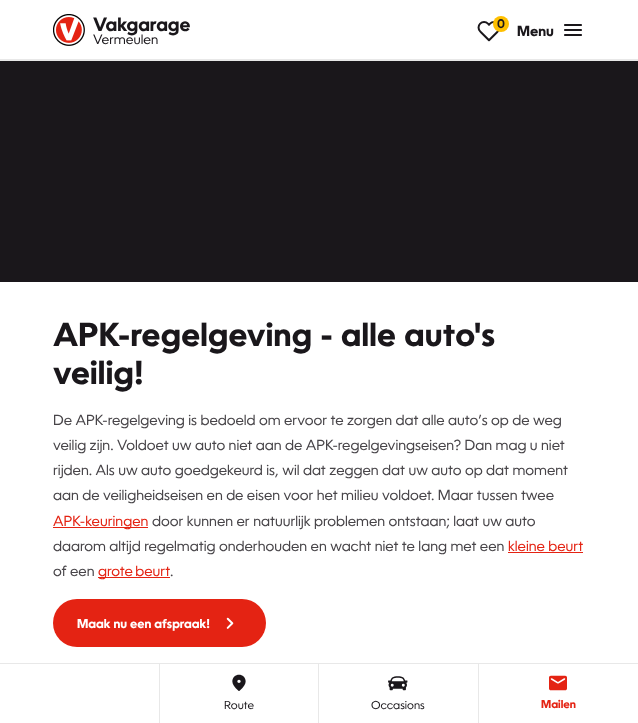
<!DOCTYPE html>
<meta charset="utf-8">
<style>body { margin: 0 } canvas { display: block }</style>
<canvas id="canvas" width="638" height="723"></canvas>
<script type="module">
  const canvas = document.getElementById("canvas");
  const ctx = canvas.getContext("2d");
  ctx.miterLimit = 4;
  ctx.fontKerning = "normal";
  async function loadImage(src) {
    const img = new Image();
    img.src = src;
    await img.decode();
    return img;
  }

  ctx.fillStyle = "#ffffff";
  ctx.fillRect(0, 0, 638, 723);
  ctx.fillStyle = "#e8e8e8";
  ctx.fillRect(0, 59, 638, 2);
  ctx.drawImage(await loadImage("img1.png"), 53, 14, 32, 32);
  ctx.font = "bold 18.5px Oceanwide";
  ctx.fillStyle = "#1a171b";
  ctx.fillText("Vakgarage", 93, 31);
  ctx.font = "13px Oceanwide";
  ctx.fillText("Vermeulen", 93, 44);
  ctx.drawImage(await loadImage("img2.png"), 477, 21, 23, 21);
  ctx.fillStyle = "#ffc000";
  ctx.beginPath();
  ctx.arc(501, 24, 8, 0, Math.PI * 2);
  ctx.fill();
  ctx.font = "600 12px Oceanwide";
  ctx.fillStyle = "#1a171b";
  ctx.fillText("0", 497, 28);
  ctx.font = "bold 14px Oceanwide";
  ctx.fillText("Menu", 517, 36);
  ctx.drawImage(await loadImage("img3.png"), 564, 24, 18, 12);
  ctx.fillRect(0, 61, 638, 221);
  ctx.letterSpacing = "0.3px";
  ctx.font = "bold 32px Oceanwide";
  ctx.fillText("APK-regelgeving - alle auto's", 53, 346);
  ctx.fillText("veilig!", 53, 384);
  ctx.letterSpacing = "0px";
  ctx.font = "14px Oceanwide";
  ctx.fillStyle = "#484549";
  ctx.fillText("De APK-regelgeving is bedoeld om ervoor te zorgen dat alle auto’s op de weg", 53, 425);
  ctx.fillText("veilig zijn. Voldoet uw auto niet aan de APK-regelgevingseisen? Dan mag u niet", 53, 450);
  ctx.fillText("rijden. Als uw auto goedgekeurd is, wil dat zeggen dat uw auto op dat moment", 53, 475);
  ctx.fillText("aan de veiligheidseisen en de eisen voor het milieu voldoet. Maar tussen twee", 53, 500);
  ctx.fillStyle = "#e42313";
  ctx.fillRect(53, 527, 95, 1);
  ctx.fillText("APK-keuringen", 53, 526);
  ctx.fillStyle = "#484549";
  ctx.fillText("door kunnen er natuurlijk problemen ontstaan; laat uw auto", 152, 526);
  ctx.fillText("daarom altijd regelmatig onderhouden en wacht niet te lang met een", 53, 551);
  ctx.fillStyle = "#e42313";
  ctx.fillText("kleine beurt", 508, 551);
  ctx.fillRect(508, 552, 75, 1);
  ctx.fillStyle = "#484549";
  ctx.fillText("of een", 53, 576);
  ctx.fillStyle = "#e42313";
  ctx.fillRect(98, 577, 72, 1);
  ctx.wordSpacing = "-1px";
  ctx.fillText("grote beurt", 98, 576);
  ctx.wordSpacing = "0px";
  ctx.fillStyle = "#484549";
  ctx.fillText(".", 170, 576);
  ctx.fillStyle = "#e42313";
  ctx.beginPath();
  ctx.roundRect(53, 599, 213, 48, 24);
  ctx.fill();
  ctx.font = "bold 12.25px Oceanwide";
  ctx.fillStyle = "#ffffff";
  ctx.fillText("Maak nu een afspraak!", 77, 628);
  ctx.drawImage(await loadImage("img4.png"), 226, 617, 8, 12);
  ctx.fillStyle = "#e8e8e8";
  ctx.fillRect(0, 663, 638, 1);
  ctx.fillRect(159, 664, 1, 59);
  ctx.fillRect(318, 664, 1, 59);
  ctx.drawImage(await loadImage("img5.png"), 232, 674, 14, 17);
  ctx.font = "11px Oceanwide";
  ctx.fillStyle = "#1a171b";
  ctx.fillText("Route", 224, 709);
  ctx.fillStyle = "#e8e8e8";
  ctx.fillRect(478, 664, 1, 59);
  ctx.drawImage(await loadImage("img6.png"), 388, 676, 20, 15);
  ctx.fillStyle = "#1a171b";
  ctx.fillText("Occasions", 371, 709);
  ctx.drawImage(await loadImage("img7.png"), 549, 675, 18, 16);
  ctx.font = "bold 11px Oceanwide";
  ctx.fillStyle = "#e42313";
  ctx.fillText("Mailen", 541, 708);
</script>
